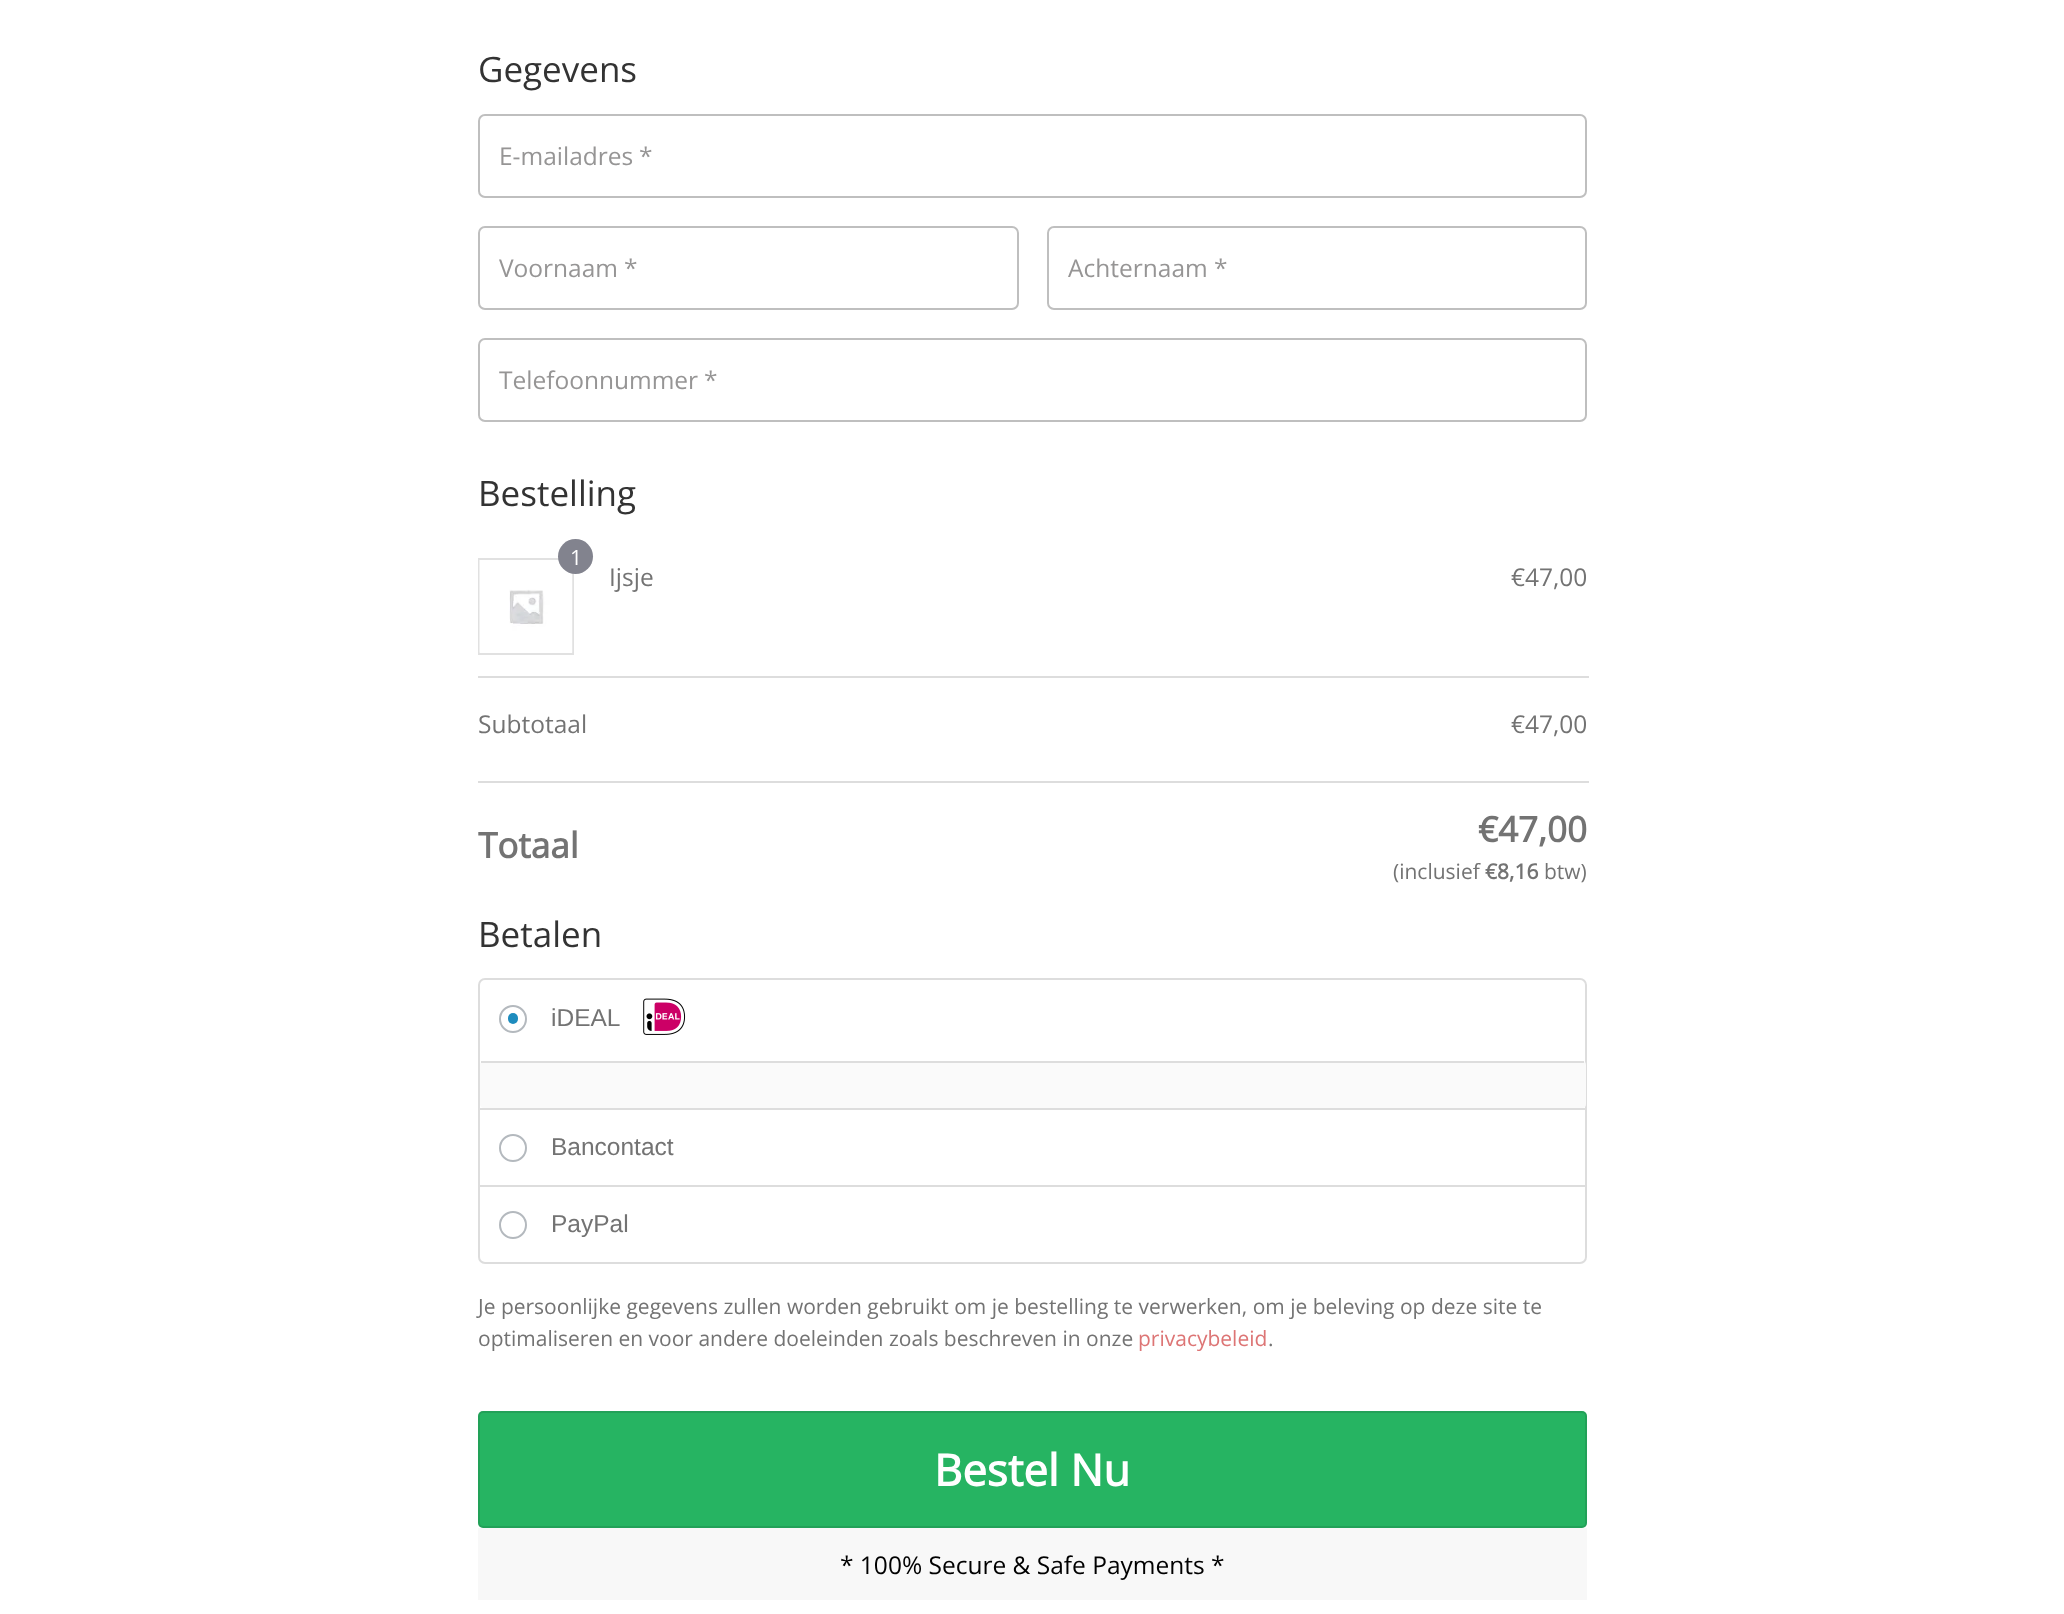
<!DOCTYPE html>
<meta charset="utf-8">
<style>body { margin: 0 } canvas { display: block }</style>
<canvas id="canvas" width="2064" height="1614"></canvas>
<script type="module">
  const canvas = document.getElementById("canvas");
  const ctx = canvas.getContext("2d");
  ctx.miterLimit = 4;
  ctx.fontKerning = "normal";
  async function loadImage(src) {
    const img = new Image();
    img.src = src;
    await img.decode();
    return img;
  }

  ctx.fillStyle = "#ffffff";
  ctx.fillRect(0, 0, 2064, 1614);
  ctx.font = "35px Open Sans";
  ctx.fillStyle = "#333333";
  ctx.fillText("Gegevens", 478, 82);
  ctx.beginPath();
  ctx.roundRect(479, 115, 1107, 82, 6);
  ctx.strokeStyle = "#bfbfbf";
  ctx.lineWidth = 2;
  ctx.stroke();
  ctx.font = "24.5px Open Sans";
  ctx.fillStyle = "#969595";
  ctx.fillText("E-mailadres", 499, 165);
  ctx.fillText("*", 639, 165);
  ctx.beginPath();
  ctx.roundRect(479, 227, 539, 82, 6);
  ctx.stroke();
  ctx.fillText("Voornaam", 499, 277);
  ctx.fillText("*", 624, 277);
  ctx.beginPath();
  ctx.roundRect(1048, 227, 538, 82, 6);
  ctx.stroke();
  ctx.fillText("Achternaam", 1068, 277);
  ctx.fillText("*", 1214, 277);
  ctx.beginPath();
  ctx.roundRect(479, 339, 1107, 82, 6);
  ctx.stroke();
  ctx.fillText("Telefoonnummer", 499, 389);
  ctx.fillText("*", 704, 389);
  ctx.font = "35px Open Sans";
  ctx.fillStyle = "#333333";
  ctx.fillText("Bestelling", 478, 506);
  ctx.strokeStyle = "#e1e1e1";
  ctx.strokeRect(479, 559, 94, 95);
  ctx.drawImage(await loadImage("img1.png"), 479, 560, 94, 93);
  ctx.fillStyle = "#82838e";
  ctx.beginPath();
  ctx.arc(575.5, 556.5, 17.5, 0, Math.PI * 2);
  ctx.fill();
  ctx.font = "21px Open Sans";
  ctx.fillStyle = "#ffffff";
  ctx.fillText("1", 570, 565);
  ctx.font = "24.5px Open Sans";
  ctx.fillStyle = "#737373";
  ctx.fillText("Ijsje", 609, 586);
  ctx.fillText("€47,00", 1511, 586);
  ctx.fillStyle = "#dddddd";
  ctx.fillRect(478, 676, 1111, 2);
  ctx.fillStyle = "#737373";
  ctx.fillText("Subtotaal", 478, 733);
  ctx.fillText("€47,00", 1511, 733);
  ctx.fillStyle = "#dddddd";
  ctx.fillRect(478, 781, 1111, 2);
  ctx.font = "bold 35px Open Sans";
  ctx.fillStyle = "#737373";
  ctx.fillText("Totaal", 478, 858);
  ctx.fillText("€47,00", 1478, 842);
  ctx.font = "21px Open Sans";
  ctx.fillText("(inclusief", 1393, 879);
  ctx.font = "bold 21px Open Sans";
  ctx.fillText("€8,16", 1485, 879);
  ctx.font = "21px Open Sans";
  ctx.fillText("btw)", 1544, 879);
  ctx.font = "35px Open Sans";
  ctx.fillStyle = "#333333";
  ctx.fillText("Betalen", 478, 947);
  ctx.beginPath();
  ctx.roundRect(479, 979, 1107, 284, 6);
  ctx.strokeStyle = "#dddddd";
  ctx.stroke();
  ctx.fillStyle = "#dddddd";
  ctx.fillRect(480, 1108, 1106, 2);
  ctx.beginPath();
  ctx.arc(513, 1019, 13, 0, Math.PI * 2);
  ctx.strokeStyle = "#b4b9be";
  ctx.stroke();
  ctx.fillStyle = "#1e8cbe";
  ctx.beginPath();
  ctx.roundRect(508, 1013, 10, 11, 5);
  ctx.fill();
  ctx.font = "24.5px Liberation Sans";
  ctx.fillStyle = "#737373";
  ctx.fillText("iDEAL", 551, 1026);
  ctx.drawImage(await loadImage("img2.png"), 643, 998, 43, 37);
  ctx.fillStyle = "#fafafa";
  ctx.beginPath();
  ctx.roundRect(480, 1061, 1106, 47, 4);
  ctx.fill();
  ctx.fillStyle = "#dddddd";
  ctx.fillRect(481, 1061, 1103, 2);
  ctx.fillRect(480, 1185, 1106, 2);
  ctx.beginPath();
  ctx.arc(513, 1148, 13, 0, Math.PI * 2);
  ctx.stroke();
  ctx.fillStyle = "#737373";
  ctx.fillText("Bancontact", 551, 1155);
  ctx.beginPath();
  ctx.arc(513, 1225, 13, 0, Math.PI * 2);
  ctx.stroke();
  ctx.fillText("PayPal", 551, 1232);
  ctx.font = "21px Open Sans";
  ctx.fillText("Je persoonlijke gegevens zullen worden gebruikt om je bestelling te verwerken, om je beleving op deze site te", 478, 1314);
  ctx.fillText("optimaliseren en voor andere doeleinden zoals beschreven in onze", 478, 1346);
  ctx.fillStyle = "#dd7575";
  ctx.fillText("privacybeleid", 1138, 1346);
  ctx.fillStyle = "#737373";
  ctx.fillText(".", 1268, 1346);
  ctx.fillStyle = "#26b462";
  ctx.beginPath();
  ctx.roundRect(478, 1411, 1109, 117, 5);
  ctx.fill();
  ctx.beginPath();
  ctx.roundRect(479, 1412, 1107, 115, 4);
  ctx.strokeStyle = "rgba(0, 0, 0, 0.1)";
  ctx.stroke();
  ctx.font = "bold 43.75px Open Sans";
  ctx.fillStyle = "#ffffff";
  ctx.fillText("Bestel Nu", 934, 1486);
  ctx.fillStyle = "#f8f8f8";
  ctx.fillRect(478, 1528, 1109, 72);
  ctx.font = "24.5px Open Sans";
  ctx.fillStyle = "#000000";
  ctx.fillText("* 100% Secure & Safe Payments *", 840, 1574);
</script>
